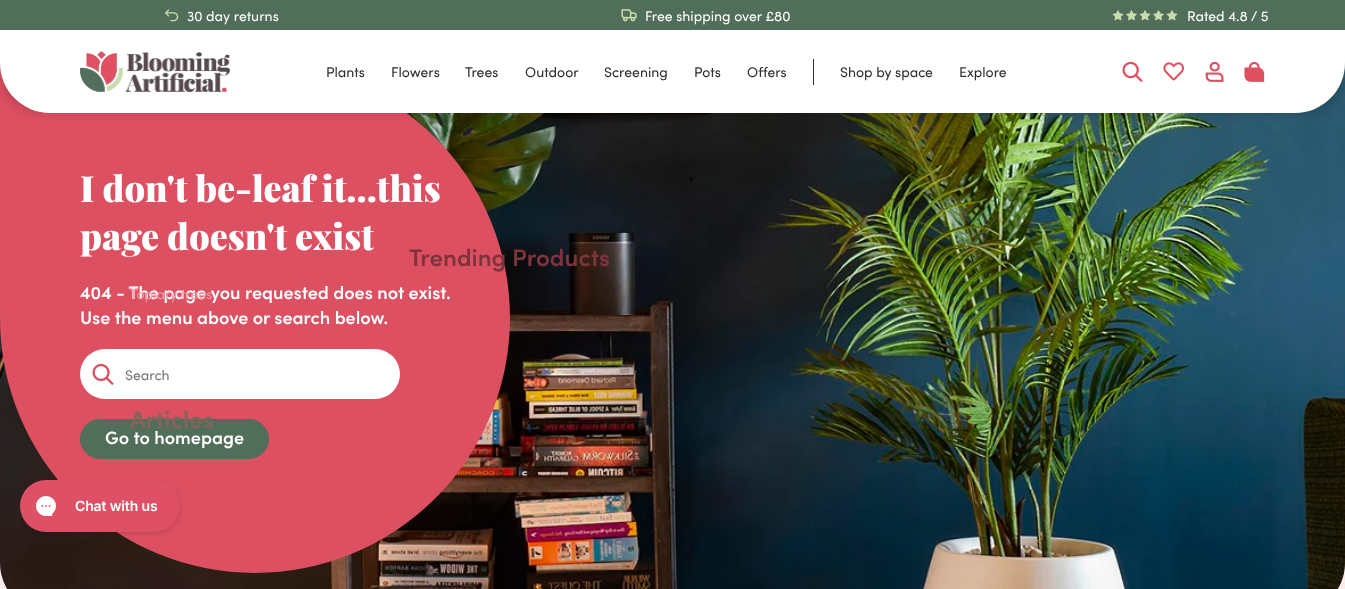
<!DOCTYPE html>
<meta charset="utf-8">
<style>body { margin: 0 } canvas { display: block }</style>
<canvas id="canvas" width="1345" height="589"></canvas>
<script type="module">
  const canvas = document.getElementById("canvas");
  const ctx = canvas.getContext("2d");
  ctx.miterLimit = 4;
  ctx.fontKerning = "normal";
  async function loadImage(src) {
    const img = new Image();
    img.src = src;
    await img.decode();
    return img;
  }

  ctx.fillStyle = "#fbedeb";
  ctx.fillRect(0, 0, 1345, 589);
  ctx.drawImage(await loadImage("img9.png"), 0, 63, 1345, 526);
  ctx.fillStyle = "#dd5061";
  ctx.beginPath();
  ctx.roundRect(0, 63, 510, 510, [0, 255, 255, 255]);
  ctx.fill();
  ctx.fillStyle = "rgba(0, 0, 0, 0.16)";
  ctx.filter = "blur(5px)";
  ctx.beginPath();
  ctx.roundRect(0, 30, 1345, 83, 50);
  ctx.fill();
  ctx.filter = "none";
  ctx.fillStyle = "#516e5a";
  ctx.fillRect(0, 0, 1345, 30);
  ctx.drawImage(await loadImage("img1.png"), 165, 9, 14, 13);
  ctx.font = "14px Sofia";
  ctx.fillStyle = "#ffffff";
  ctx.fillText("30 day returns", 187, 21);
  ctx.drawImage(await loadImage("img2.png"), 621, 9, 16, 13);
  ctx.fillText("Free shipping over £80", 645, 21);
  ctx.drawImage(await loadImage("img3.png"), 1112, 10, 66, 11);
  ctx.fillText("Rated 4.8 / 5", 1187, 21);
  ctx.beginPath();
  ctx.roundRect(0, 30, 1345, 83, [0, 0, 50, 50]);
  ctx.fill();
  ctx.drawImage(await loadImage("img4.png"), 80, 51, 150, 41);
  ctx.fillStyle = "#332d2d";
  ctx.fillText("Plants", 326, 77);
  ctx.fillText("Flowers", 391, 77);
  ctx.fillText("Trees", 465, 77);
  ctx.fillText("Outdoor", 525, 77);
  ctx.fillText("Screening", 604, 77);
  ctx.fillText("Pots", 694, 77);
  ctx.fillText("Offers", 747, 77);
  ctx.fillRect(813, 59, 1, 26);
  ctx.fillText("Shop by space", 840, 77);
  ctx.fillText("Explore", 959, 77);
  ctx.drawImage(await loadImage("img5.png"), 1122, 61, 21, 21);
  ctx.drawImage(await loadImage("img6.png"), 1163, 62, 21, 19);
  ctx.drawImage(await loadImage("img7.png"), 1205, 61, 19, 21);
  ctx.drawImage(await loadImage("img8.png"), 1244, 61, 21, 21);
  ctx.font = "600 24px Sofia";
  ctx.fillStyle = "#7d343d";
  ctx.fillText("Trending Products", 409, 266);
  ctx.font = "600 18px Sofia";
  ctx.fillStyle = "#4f7123";
  ctx.fillText("Shop All Products", 1045, 261);
  ctx.fillStyle = "#ffffff";
  ctx.fillText("404 - The page you requested does not exist.", 80, 299);
  ctx.font = "14px Sofia";
  ctx.fillStyle = "#ec9ba5";
  ctx.fillText("Topiary trees", 130, 299);
  ctx.fillStyle = "#516e5a";
  ctx.beginPath();
  ctx.roundRect(80.5, 419.5, 188, 39, 19.5);
  ctx.fill();
  ctx.strokeStyle = "#516e5a";
  ctx.stroke();
  ctx.font = "bold 24px Sofia";
  ctx.fillStyle = "#81645c";
  ctx.fillText("Articles", 130, 428);
  ctx.font = "900 36px Playfair Display";
  ctx.fillStyle = "#ffffff";
  ctx.fillText("I don't be-leaf it...this", 80, 202);
  ctx.fillText("page doesn't exist", 80, 250);
  ctx.font = "600 18px Sofia";
  ctx.fillText("Use the menu above or search below.", 80, 324);
  ctx.beginPath();
  ctx.roundRect(80, 349, 320, 50, 25);
  ctx.fill();
  ctx.drawImage(await loadImage("img10.png"), 92, 363, 22, 22);
  ctx.font = "14px Sofia";
  ctx.fillStyle = "#757575";
  ctx.fillText("Search", 125, 380);
  ctx.font = "600 18px Sofia";
  ctx.fillStyle = "#ffffff";
  ctx.fillText("Go to homepage", 105, 444);
  ctx.drawImage(await loadImage("img11.png"), 20, 480, 162, 56);
</script>
